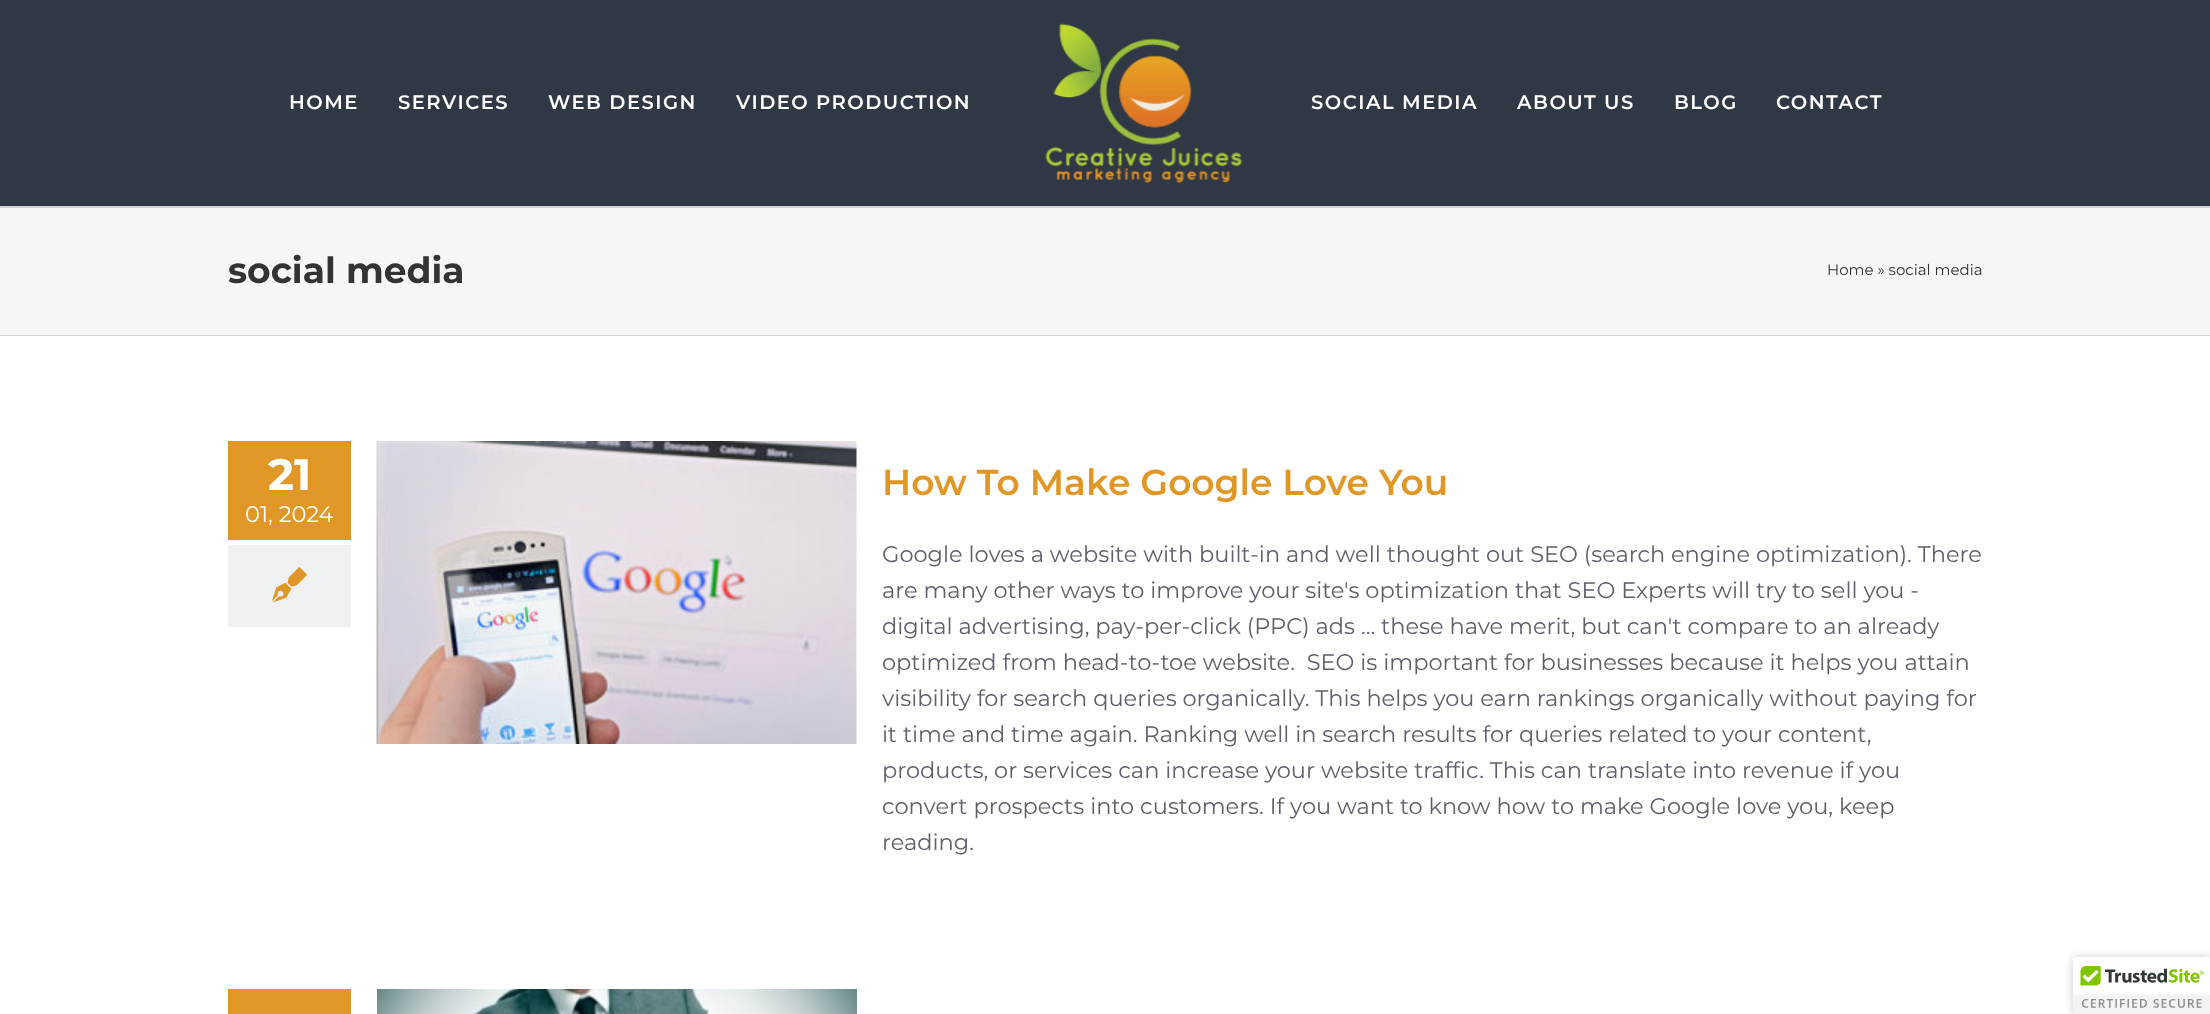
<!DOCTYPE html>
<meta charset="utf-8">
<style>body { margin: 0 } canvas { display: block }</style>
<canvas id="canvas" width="2210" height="1014"></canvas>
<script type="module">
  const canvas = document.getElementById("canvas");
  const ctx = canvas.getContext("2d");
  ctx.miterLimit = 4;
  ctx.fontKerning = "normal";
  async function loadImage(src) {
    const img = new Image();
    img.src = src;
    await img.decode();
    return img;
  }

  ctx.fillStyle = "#f6f6f6";
  ctx.fillRect(0, 0, 2210, 1014);
  ctx.fillStyle = "#303745";
  ctx.fillRect(0, 0, 2210, 206);
  ctx.letterSpacing = "1.5px";
  ctx.font = "600 19.5px Montserrat";
  ctx.fillStyle = "#ffffff";
  ctx.fillText("HOME", 289, 109);
  ctx.fillText("SERVICES", 398, 109);
  ctx.fillText("WEB DESIGN", 548, 109);
  ctx.fillText("VIDEO PRODUCTION", 736, 109);
  ctx.drawImage(await loadImage("img1.png"), 1045, 23, 198, 160);
  ctx.fillText("SOCIAL MEDIA", 1311, 109);
  ctx.fillText("ABOUT US", 1517, 109);
  ctx.fillText("BLOG", 1674, 109);
  ctx.fillText("CONTACT", 1776, 109);
  ctx.fillStyle = "#d2d3d4";
  ctx.fillRect(0, 206, 2210, 2);
  ctx.fillRect(0, 335, 2210, 1);
  ctx.letterSpacing = "0px";
  ctx.font = "bold 36px Montserrat";
  ctx.fillStyle = "#333333";
  ctx.fillText("social media", 228, 283);
  ctx.font = "15px Montserrat";
  ctx.fillText("Home » social media", 1827, 275);
  ctx.fillStyle = "#ffffff";
  ctx.fillRect(0, 336, 2210, 678);
  ctx.fillStyle = "#e19726";
  ctx.fillRect(228, 441, 123, 99);
  ctx.font = "bold 44px Montserrat";
  ctx.fillStyle = "#ffffff";
  ctx.fillText("21", 268, 490);
  ctx.font = "22.5px Montserrat";
  ctx.fillText("01, 2024", 245, 522);
  ctx.fillStyle = "#eef0f2";
  ctx.fillRect(228, 545, 123, 82);
  ctx.drawImage(await loadImage("img2.png"), 271, 566, 37, 37);
  ctx.drawImage(await loadImage("img3.png"), 376, 441, 481, 303);
  ctx.font = "600 36px Montserrat";
  ctx.fillStyle = "#e19726";
  ctx.fillText("How To Make Google Love You", 882, 495);
  ctx.font = "22.5px Montserrat";
  ctx.fillStyle = "#5b606b";
  ctx.fillText("Google loves a website with built-in and well thought out SEO (search engine optimization). There", 882, 562);
  ctx.fillText("are many other ways to improve your site's optimization that SEO Experts will try to sell you -", 882, 598);
  ctx.fillText("digital advertising, pay-per-click (PPC) ads ... these have merit, but can't compare to an already", 882, 634);
  ctx.fillText("optimized from head-to-toe website.  SEO is important for businesses because it helps you attain", 882, 670);
  ctx.fillText("visibility for search queries organically. This helps you earn rankings organically without paying for", 882, 706);
  ctx.fillText("it time and time again. Ranking well in search results for queries related to your content,", 882, 742);
  ctx.fillText("products, or services can increase your website traffic. This can translate into revenue if you", 882, 778);
  ctx.fillText("convert prospects into customers. If you want to know how to make Google love you, keep", 882, 814);
  ctx.fillText("reading.", 882, 850);
  ctx.fillStyle = "#e19726";
  ctx.fillRect(228, 989, 123, 25);
  ctx.drawImage(await loadImage("img4.png"), 377, 989, 480, 25);
  ctx.fillStyle = "rgba(0, 0, 0, 0.2)";
  ctx.filter = "blur(4px)";
  ctx.beginPath();
  ctx.roundRect(2073, 957, 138, 57, 3);
  ctx.fill();
  ctx.filter = "none";
  ctx.fillStyle = "#ffffff";
  ctx.beginPath();
  ctx.moveTo(2076, 957);
  ctx.lineTo(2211, 957);
  ctx.lineTo(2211, 1014);
  ctx.lineTo(2073, 1014);
  ctx.lineTo(2073, 960);
  ctx.bezierCurveTo(2073, 958.5, 2074.5, 957, 2076, 957);
  ctx.closePath();
  ctx.fill();
  ctx.drawImage(await loadImage("img5.png"), 2073, 957, 137, 57);
</script>
